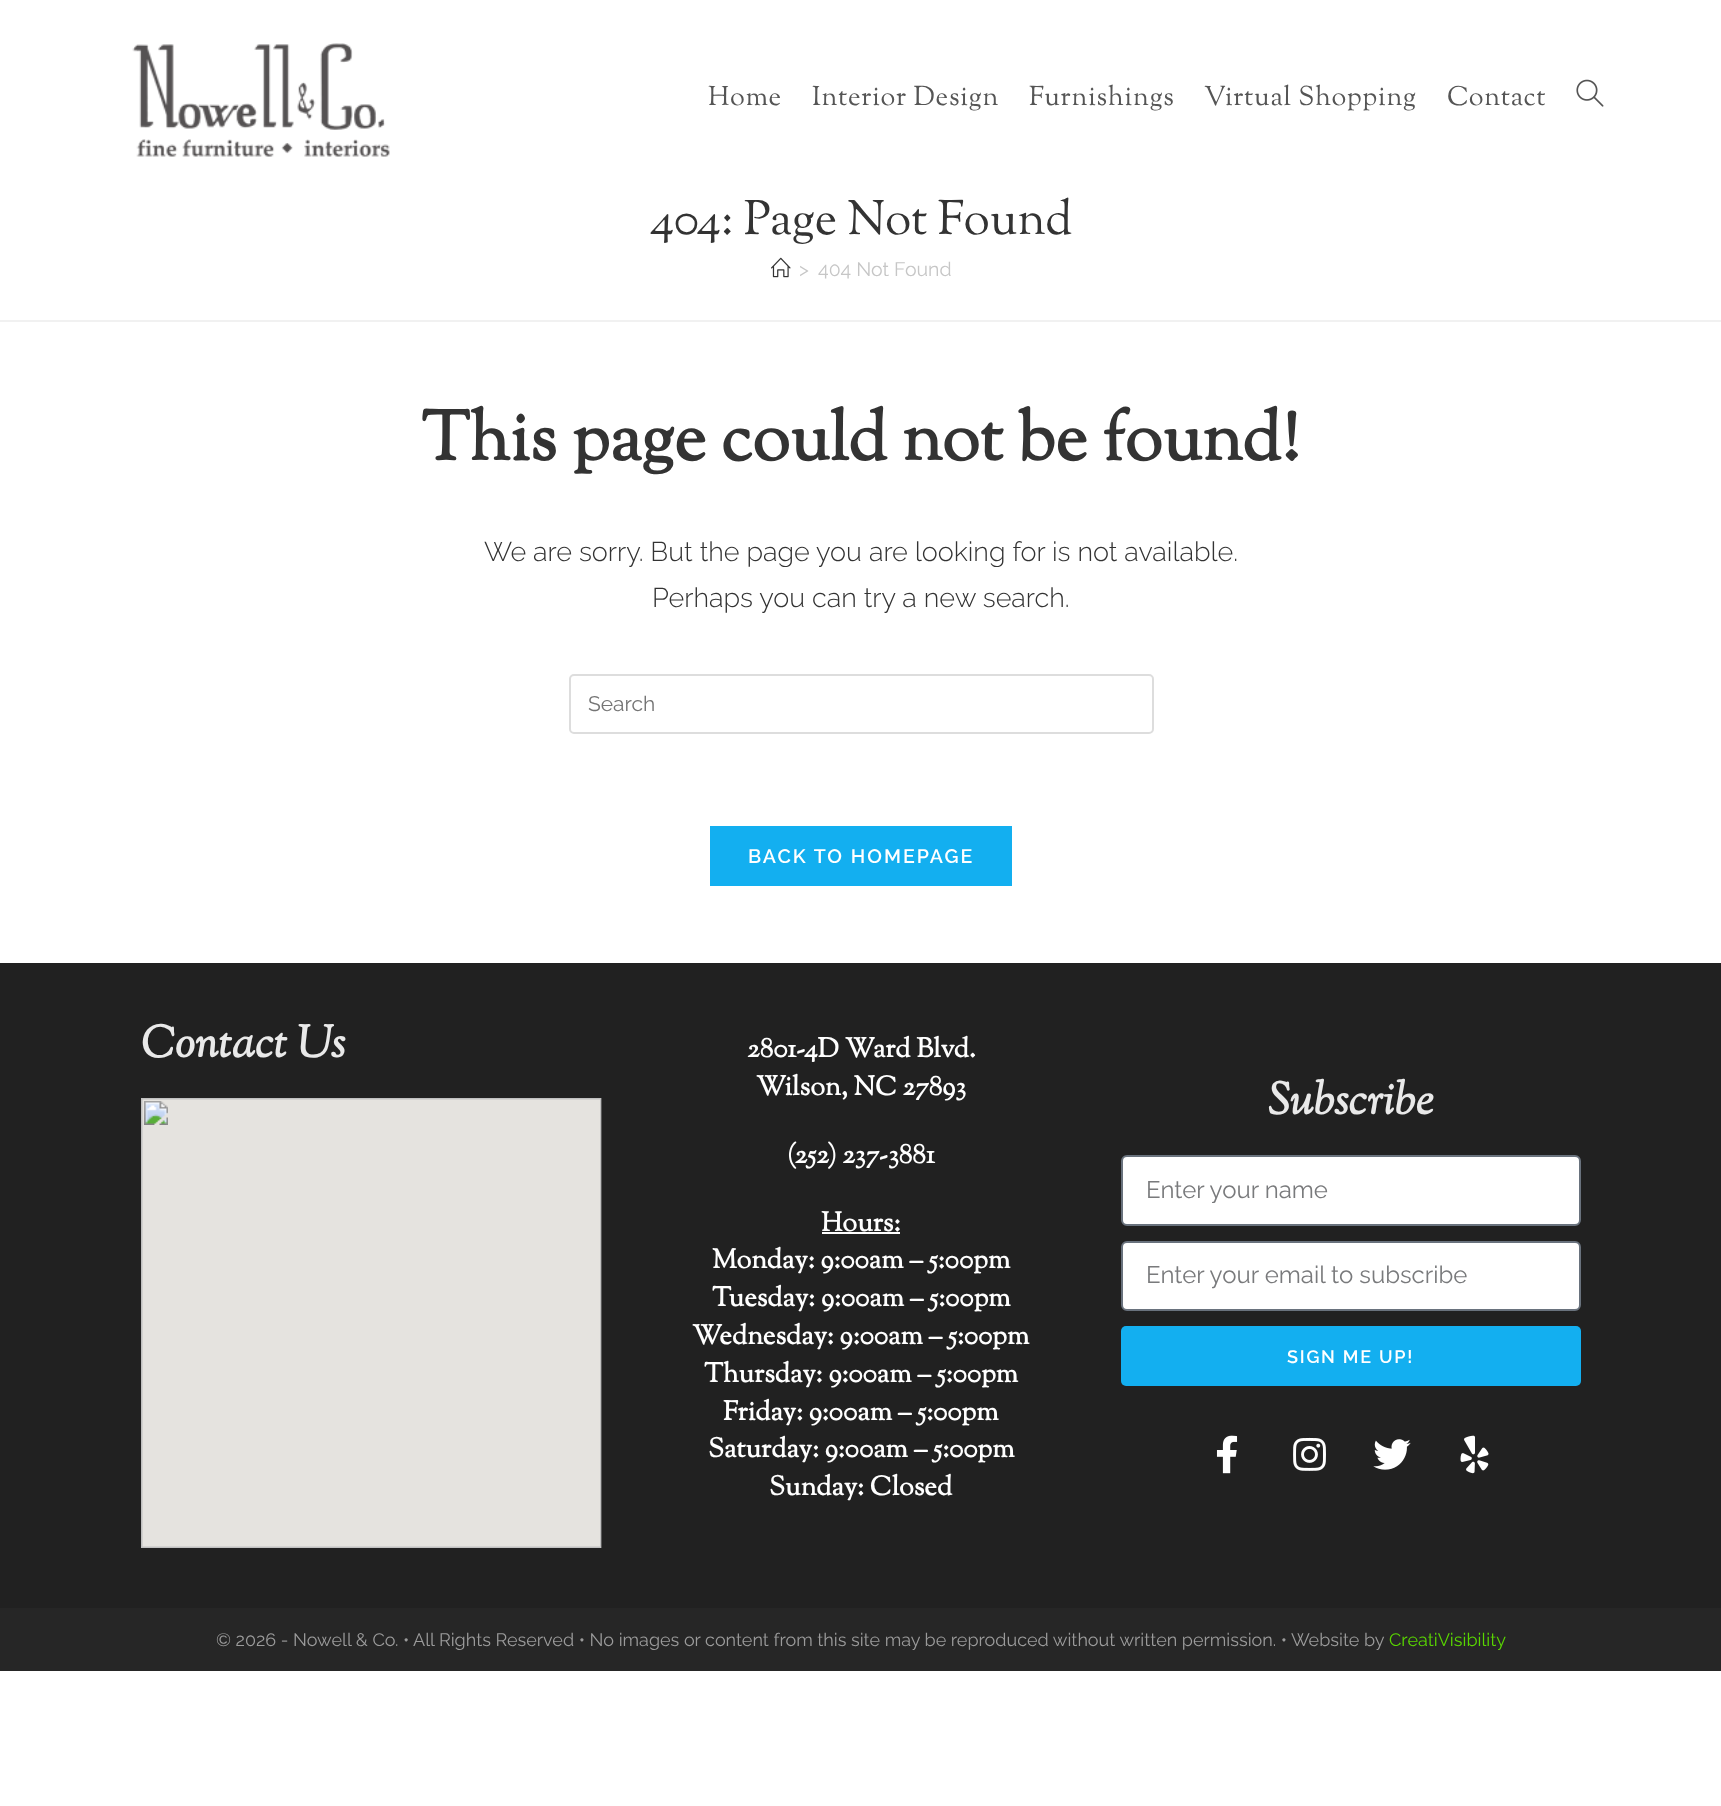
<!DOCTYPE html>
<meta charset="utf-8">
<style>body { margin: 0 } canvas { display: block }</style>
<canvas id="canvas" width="1721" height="1806"></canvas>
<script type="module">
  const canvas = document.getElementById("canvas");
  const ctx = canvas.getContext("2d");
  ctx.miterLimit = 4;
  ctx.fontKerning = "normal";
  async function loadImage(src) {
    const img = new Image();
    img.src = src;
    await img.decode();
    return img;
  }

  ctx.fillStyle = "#ffffff";
  ctx.fillRect(0, 0, 1721, 1806);
  ctx.drawImage(await loadImage("img1.png"), 132, 43, 258, 114);
  ctx.letterSpacing = "0.75px";
  ctx.font = "27px Sorts Mill Goudy";
  ctx.fillStyle = "#555555";
  ctx.fillText("Home", 708, 105);
  ctx.fillText("Interior Design", 812, 105);
  ctx.fillText("Furnishings", 1029, 105);
  ctx.fillText("Virtual Shopping", 1204, 105);
  ctx.fillText("Contact", 1447, 105);
  ctx.drawImage(await loadImage("img2.png"), 1576, 79, 28, 28);
  ctx.fillStyle = "#f1f1f1";
  ctx.fillRect(0, 320, 1721, 2);
  ctx.letterSpacing = "0px";
  ctx.font = "48px Sorts Mill Goudy";
  ctx.fillStyle = "#333333";
  ctx.fillText("404: Page Not Found", 650, 234);
  ctx.drawImage(await loadImage("img3.png"), 771, 257, 20, 21);
  ctx.font = "19.5px Raleway";
  ctx.fillStyle = "#c6c6c6";
  ctx.fillText(">", 799, 276);
  ctx.fillText("404 Not Found", 818, 276);
  ctx.font = "bold 69px Sorts Mill Goudy";
  ctx.fillStyle = "#333333";
  ctx.fillText("This page could not be found!", 421, 460);
  ctx.font = "300 27px Raleway";
  ctx.fillText("We are sorry. But the page you are looking for is not available.", 484, 561);
  ctx.fillText("Perhaps you can try a new search.", 652, 607);
  ctx.beginPath();
  ctx.roundRect(570, 675, 583, 58, 4);
  ctx.strokeStyle = "#dddddd";
  ctx.lineWidth = 2;
  ctx.stroke();
  ctx.font = "21px Raleway";
  ctx.fillStyle = "#757575";
  ctx.fillText("Search", 588, 711);
  ctx.fillStyle = "#13aff0";
  ctx.fillRect(710, 826, 302, 60);
  ctx.letterSpacing = "2px";
  ctx.font = "600 19.5px Raleway";
  ctx.fillStyle = "#ffffff";
  ctx.fillText("BACK TO HOMEPAGE", 748, 863);
  ctx.fillStyle = "#212121";
  ctx.fillRect(0, 963, 1721, 645);
  ctx.letterSpacing = "0px";
  ctx.font = "italic bold 45px Sorts Mill Goudy";
  ctx.fillStyle = "#e9e9e9";
  ctx.fillText("Contact Us", 141, 1057);
  ctx.drawImage(await loadImage("img4.png"), 141, 1098, 461, 450);
  ctx.font = "bold 27px Sorts Mill Goudy";
  ctx.fillStyle = "#ffffff";
  ctx.fillText("2801-4D Ward Blvd.", 747, 1057);
  ctx.fillText("Wilson, NC 27893", 756, 1095);
  ctx.fillText("(252) 237-3881", 787, 1163);
  ctx.fillText("Hours:", 821, 1231);
  ctx.fillRect(822, 1232, 78, 2);
  ctx.fillText("Monday: 9:00am – 5:00pm", 712, 1268);
  ctx.fillText("Tuesday: 9:00am – 5:00pm", 712, 1306);
  ctx.fillText("Wednesday: 9:00am – 5:00pm", 692, 1344);
  ctx.fillText("Thursday: 9:00am – 5:00pm", 704, 1382);
  ctx.fillText("Friday: 9:00am – 5:00pm", 723, 1420);
  ctx.fillText("Saturday: 9:00am – 5:00pm", 708, 1457);
  ctx.fillText("Sunday: Closed", 769, 1495);
  ctx.font = "italic bold 45px Sorts Mill Goudy";
  ctx.fillStyle = "#e9e9e9";
  ctx.fillText("Subscribe", 1268, 1114);
  ctx.fillStyle = "#ffffff";
  ctx.beginPath();
  ctx.roundRect(1122, 1156, 458, 69, 5);
  ctx.fill();
  ctx.strokeStyle = "#69727d";
  ctx.stroke();
  ctx.save();
  ctx.beginPath();
  ctx.rect(1146, 1175, 410, 28);
  ctx.clip();
  ctx.font = "24px Raleway";
  ctx.fillStyle = "#797a7c";
  ctx.fillText("Enter your name", 1146, 1198);
  ctx.restore();
  ctx.beginPath();
  ctx.roundRect(1122, 1242, 458, 68, 5);
  ctx.fill();
  ctx.stroke();
  ctx.font = "24px Raleway";
  ctx.fillStyle = "#797a7c";
  ctx.fillText("Enter your email to subscribe", 1146, 1283);
  ctx.fillStyle = "#13aff0";
  ctx.beginPath();
  ctx.roundRect(1121, 1326, 460, 60, 5);
  ctx.fill();
  ctx.letterSpacing = "1.75px";
  ctx.font = "600 18px Raleway";
  ctx.fillStyle = "#ffffff";
  ctx.fillText("SIGN ME UP!", 1287, 1363);
  ctx.drawImage(await loadImage("img5.png"), 1216, 1435, 22, 39);
  ctx.drawImage(await loadImage("img6.png"), 1293, 1437, 33, 34);
  ctx.drawImage(await loadImage("img7.png"), 1373, 1439, 38, 31);
  ctx.drawImage(await loadImage("img8.png"), 1460, 1435, 29, 39);
  ctx.fillStyle = "#262626";
  ctx.fillRect(0, 1608, 1721, 63);
  ctx.letterSpacing = "0px";
  ctx.font = "18px Raleway";
  ctx.fillStyle = "#9b9b9b";
  ctx.fillText("© 2026 - Nowell & Co. •", 216, 1646);
  ctx.fillText("All Rights Reserved • No images or content from this site may be reproduced without written permission. •", 413, 1646);
  ctx.fillText("Website by", 1291, 1646);
  ctx.fillStyle = "#59d600";
  ctx.fillText("CreatiVisibility", 1389, 1646);
</script>
